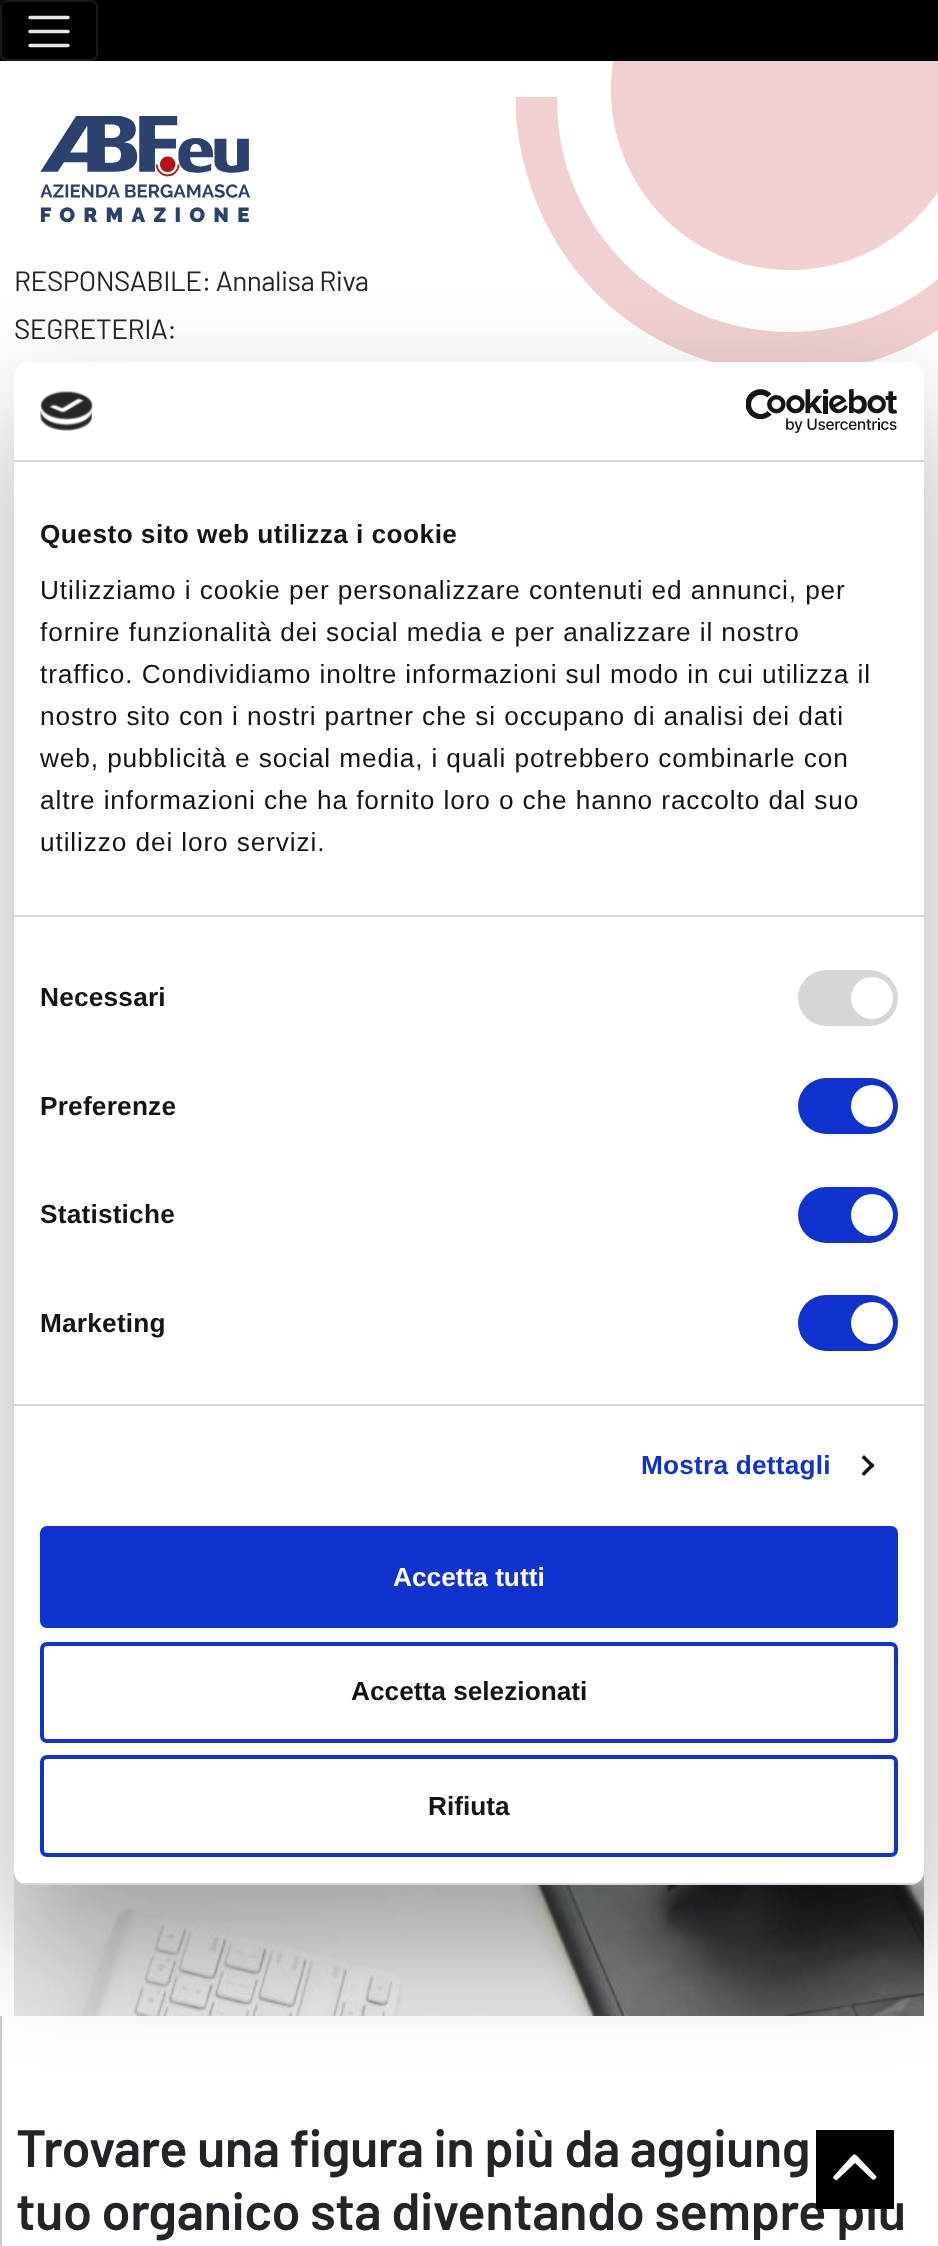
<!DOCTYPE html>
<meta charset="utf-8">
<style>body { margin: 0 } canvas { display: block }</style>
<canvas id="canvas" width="938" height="2246"></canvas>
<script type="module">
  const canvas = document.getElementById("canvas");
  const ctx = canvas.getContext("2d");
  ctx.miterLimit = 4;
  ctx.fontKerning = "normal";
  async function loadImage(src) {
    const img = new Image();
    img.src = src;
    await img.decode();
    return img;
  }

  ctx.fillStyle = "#ffffff";
  ctx.fillRect(0, 0, 938, 2246);
  ctx.fillStyle = "#f0d0d1";
  ctx.beginPath();
  ctx.moveTo(790, 270);
  ctx.bezierCurveTo(852, 270, 906, 239, 938, 192);
  ctx.lineTo(938, 52);
  ctx.lineTo(615, 52);
  ctx.bezierCurveTo(591, 163, 675, 270, 790, 270);
  ctx.closePath();
  ctx.fill();
  ctx.fillStyle = "#000000";
  ctx.fillRect(0, 0, 938, 61);
  ctx.beginPath();
  ctx.roundRect(1, 1, 96, 59, 6);
  ctx.strokeStyle = "#1a1a1a";
  ctx.lineWidth = 2;
  ctx.stroke();
  ctx.beginPath();
  ctx.moveTo(30, 17.5);
  ctx.lineTo(68, 17.5);
  ctx.moveTo(30, 31.5);
  ctx.lineTo(68, 31.5);
  ctx.moveTo(30, 45.5);
  ctx.lineTo(68, 45.5);
  ctx.strokeStyle = "#e6e6e6";
  ctx.lineWidth = 3.5;
  ctx.lineCap = "round";
  ctx.stroke();
  ctx.drawImage(await loadImage("img1.png"), 40, 116, 210, 106);
  ctx.letterSpacing = "-0.55px";
  ctx.font = "28px Barlow";
  ctx.fillStyle = "#212529";
  ctx.fillText("RESPONSABILE: Annalisa Riva", 14, 291);
  ctx.fillText("SEGRETERIA:", 14, 339);
  ctx.save();
  ctx.beginPath();
  ctx.rect(516, 53, 422, 322);
  ctx.clip();
  ctx.fillStyle = "#f0d0d1";
  ctx.beginPath();
  ctx.moveTo(790, 332);
  ctx.bezierCurveTo(662, 332, 557, 228, 557, 100);
  ctx.lineTo(557, 97);
  ctx.lineTo(516, 97);
  ctx.bezierCurveTo(514, 131, 525, 175, 538, 206);
  ctx.bezierCurveTo(604, 364, 797, 421, 938, 330);
  ctx.lineTo(938, 279);
  ctx.bezierCurveTo(898, 312, 846, 332, 790, 332);
  ctx.closePath();
  ctx.fill();
  ctx.restore();
  ctx.drawImage(await loadImage("img4.png"), 14, 1871, 910, 145);
  ctx.fillStyle = "#cccccc";
  ctx.fillRect(0, 2016, 2, 230);
  ctx.fillStyle = "rgba(0, 0, 0, 0.3)";
  ctx.filter = "blur(59.5px)";
  ctx.beginPath();
  ctx.roundRect(14, 418, 910, 1523, 14);
  ctx.fill();
  ctx.filter = "none";
  ctx.fillStyle = "#ffffff";
  ctx.beginPath();
  ctx.roundRect(14, 362, 910, 1523, 14);
  ctx.fill();
  ctx.fillStyle = "#d6d6d6";
  ctx.fillRect(14, 460, 910, 2);
  ctx.drawImage(await loadImage("img2.png"), 40, 391, 53, 40);
  ctx.drawImage(await loadImage("img3.png"), 746, 389, 152, 44);
  ctx.fillRect(14, 915, 910, 2);
  ctx.letterSpacing = "0.45px";
  ctx.font = "bold 26.25px Liberation Sans";
  ctx.fillStyle = "#141414";
  ctx.fillText("Questo sito web utilizza i cookie", 40, 543);
  ctx.letterSpacing = "0.88px";
  ctx.font = "26.25px Liberation Sans";
  ctx.fillText("Utilizziamo i cookie per personalizzare contenuti ed annunci, per", 40, 599);
  ctx.fillText("fornire funzionalità dei social media e per analizzare il nostro", 40, 641);
  ctx.fillText("traffico. Condividiamo inoltre informazioni sul modo in cui utilizza il", 40, 683);
  ctx.fillText("nostro sito con i nostri partner che si occupano di analisi dei dati", 40, 725);
  ctx.fillText("web, pubblicità e social media, i quali potrebbero combinarle con", 40, 767);
  ctx.fillText("altre informazioni che ha fornito loro o che hanno raccolto dal suo", 40, 809);
  ctx.fillText("utilizzo dei loro servizi.", 40, 851);
  ctx.fillStyle = "#d6d6d6";
  ctx.fillRect(14, 1404, 910, 2);
  ctx.letterSpacing = "0.2px";
  ctx.font = "bold 26.25px Liberation Sans";
  ctx.fillStyle = "#141414";
  ctx.fillText("Necessari", 40, 1006);
  ctx.fillStyle = "#d6d6d6";
  ctx.beginPath();
  ctx.roundRect(798, 970, 100, 56, 28);
  ctx.fill();
  ctx.fillStyle = "#ffffff";
  ctx.beginPath();
  ctx.arc(872, 998, 21, 0, Math.PI * 2);
  ctx.fill();
  ctx.fillStyle = "#141414";
  ctx.fillText("Preferenze", 40, 1115);
  ctx.fillStyle = "#1032cf";
  ctx.beginPath();
  ctx.roundRect(798, 1078, 100, 56, 28);
  ctx.fill();
  ctx.fillStyle = "#ffffff";
  ctx.beginPath();
  ctx.arc(872, 1106, 21, 0, Math.PI * 2);
  ctx.fill();
  ctx.fillStyle = "#141414";
  ctx.fillText("Statistiche", 40, 1223);
  ctx.fillStyle = "#1032cf";
  ctx.beginPath();
  ctx.roundRect(798, 1187, 100, 56, 28);
  ctx.fill();
  ctx.fillStyle = "#ffffff";
  ctx.beginPath();
  ctx.arc(872, 1215, 21, 0, Math.PI * 2);
  ctx.fill();
  ctx.fillStyle = "#141414";
  ctx.fillText("Marketing", 40, 1332);
  ctx.fillStyle = "#1032cf";
  ctx.beginPath();
  ctx.roundRect(798, 1295, 100, 56, 28);
  ctx.fill();
  ctx.fillStyle = "#ffffff";
  ctx.beginPath();
  ctx.arc(872, 1323, 21, 0, Math.PI * 2);
  ctx.fill();
  ctx.fillStyle = "#1032cf";
  ctx.fillText("Mostra dettagli", 641, 1474);
  ctx.fillStyle = "#141414";
  ctx.beginPath();
  ctx.moveTo(864, 1455);
  ctx.lineTo(874.5, 1465.5);
  ctx.lineTo(872, 1468);
  ctx.lineTo(861.5, 1457.5);
  ctx.closePath();
  ctx.fill();
  ctx.beginPath();
  ctx.moveTo(872, 1463);
  ctx.lineTo(874.5, 1465.5);
  ctx.lineTo(864, 1476);
  ctx.lineTo(861.5, 1473.5);
  ctx.closePath();
  ctx.fill();
  ctx.save();
  ctx.beginPath();
  ctx.roundRect(14, 362, 910, 1523, 14);
  ctx.clip();
  ctx.fillStyle = "#d6d6d6";
  ctx.fillRect(14, 1883, 910, 2);
  ctx.restore();
  ctx.fillStyle = "#1032cf";
  ctx.beginPath();
  ctx.roundRect(42, 1528, 854, 98, 5);
  ctx.fill();
  ctx.strokeStyle = "#1032cf";
  ctx.lineWidth = 4;
  ctx.stroke();
  ctx.letterSpacing = "0px";
  ctx.fillStyle = "#ffffff";
  ctx.fillText("Accetta tutti", 393, 1586);
  ctx.beginPath();
  ctx.roundRect(42, 1644, 854, 97, 5);
  ctx.stroke();
  ctx.fillStyle = "#141414";
  ctx.fillText("Accetta selezionati", 351, 1700);
  ctx.beginPath();
  ctx.roundRect(42, 1757, 854, 98, 5);
  ctx.stroke();
  ctx.fillText("Rifiuta", 428, 1815);
  ctx.letterSpacing = "-0.55px";
  ctx.font = "600 52.5px Barlow";
  ctx.fillStyle = "#212529";
  ctx.fillText("Trovare una figura in più da aggiung", 16, 2167);
  ctx.fillText("tuo organico sta diventando sempre più", 16, 2230);
  ctx.fillStyle = "#000000";
  ctx.fillRect(816, 2130, 78, 79);
  ctx.fillStyle = "#ffffff";
  ctx.beginPath();
  ctx.moveTo(833, 2177);
  ctx.lineTo(850, 2158);
  ctx.bezierCurveTo(855, 2153, 854, 2153, 859, 2158);
  ctx.lineTo(876, 2176);
  ctx.bezierCurveTo(878, 2177, 874, 2180, 873, 2180);
  ctx.lineTo(855, 2163);
  ctx.lineTo(837, 2180);
  ctx.bezierCurveTo(836, 2181, 833, 2178, 833, 2177);
  ctx.closePath();
  ctx.fill();
</script>
